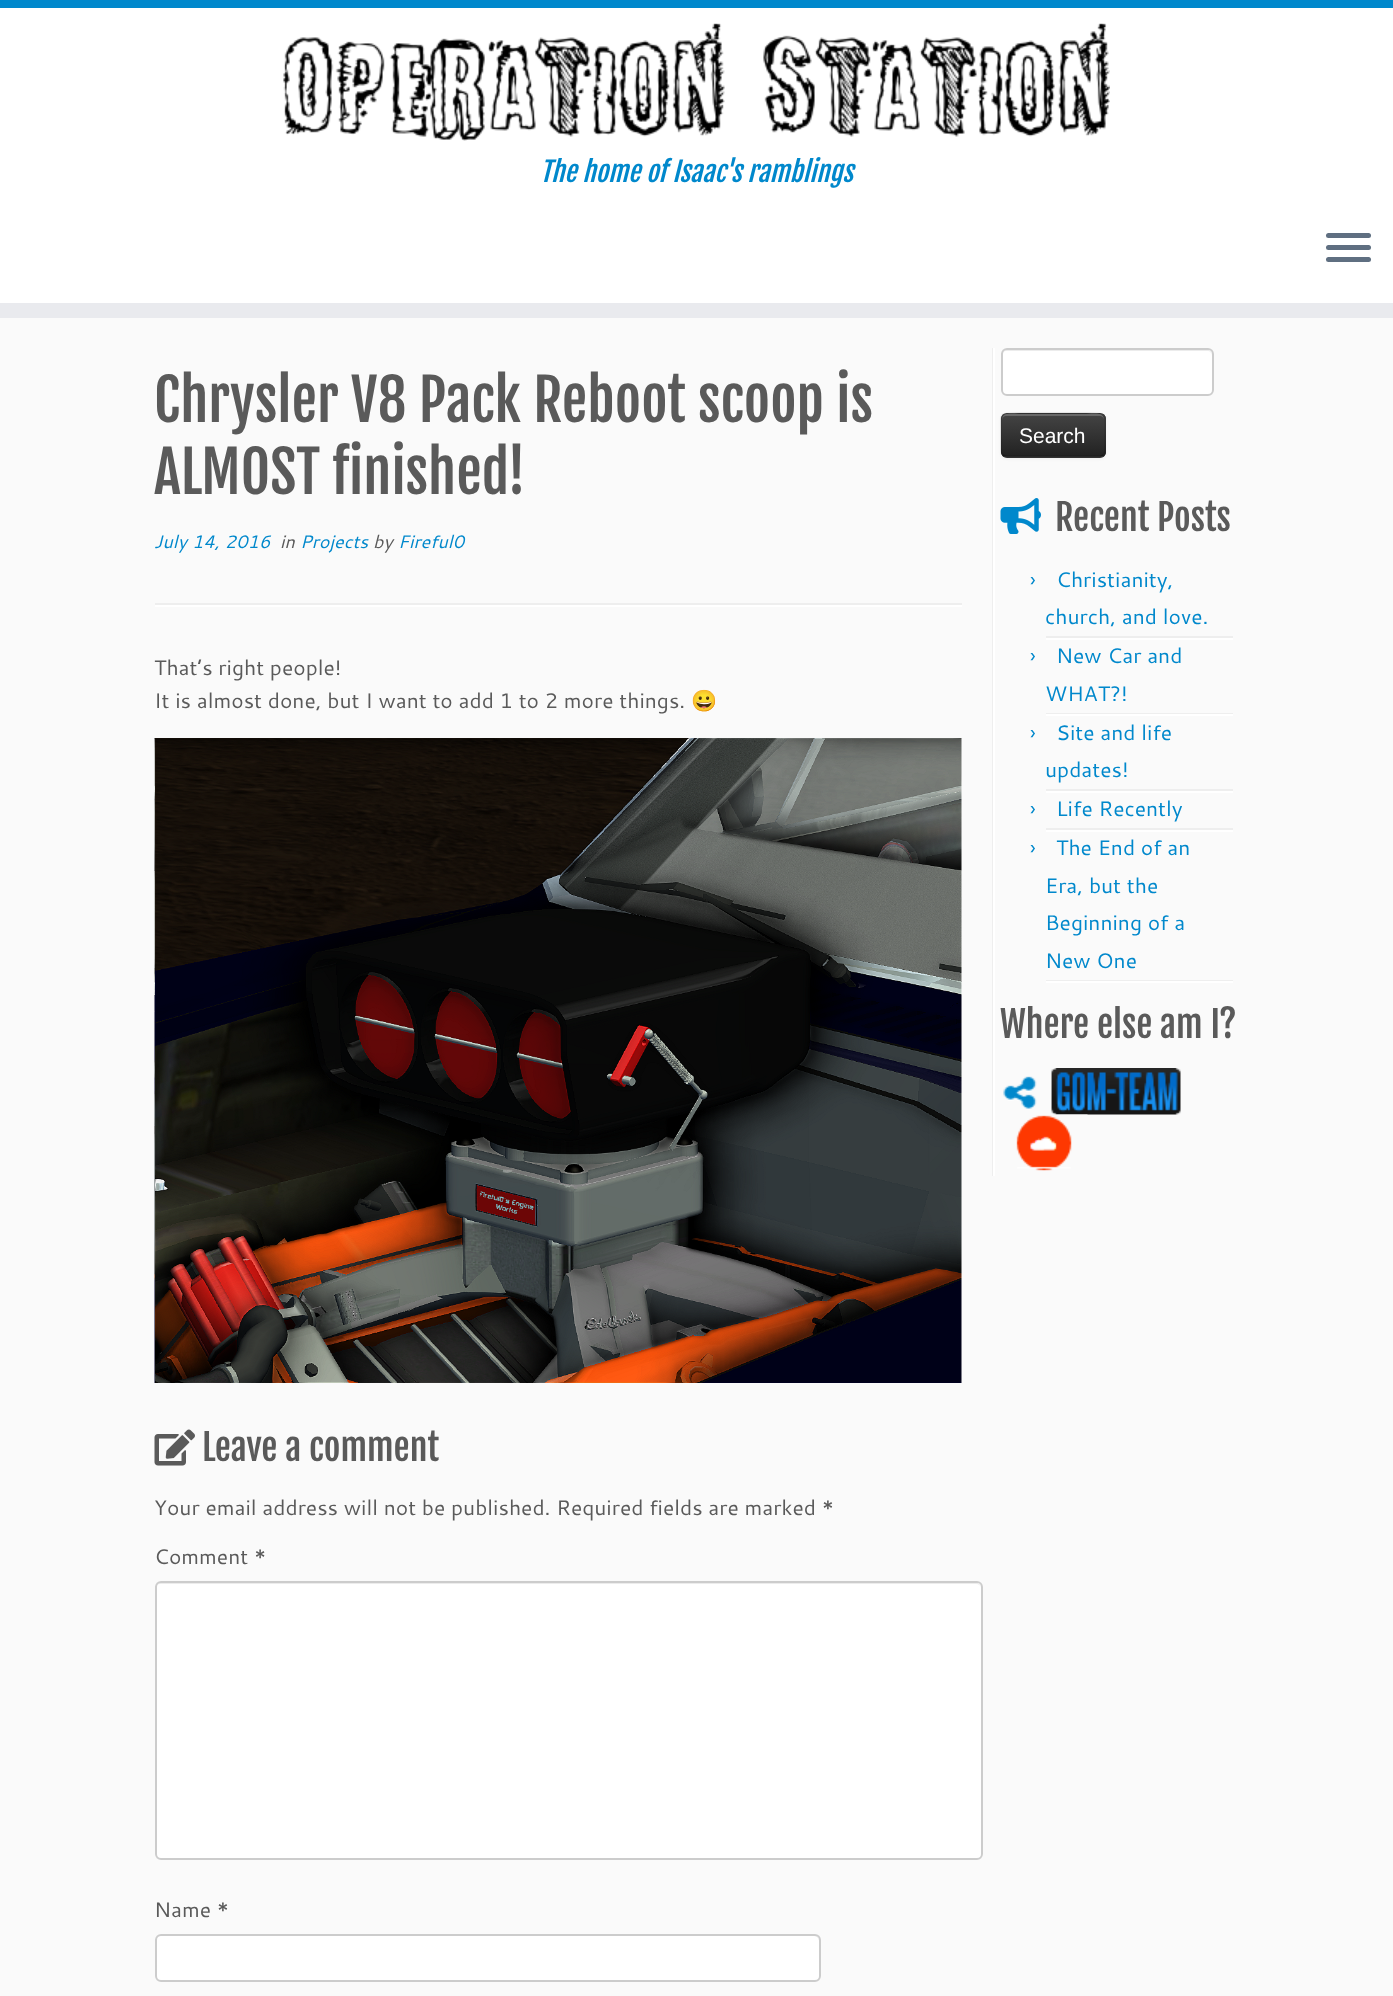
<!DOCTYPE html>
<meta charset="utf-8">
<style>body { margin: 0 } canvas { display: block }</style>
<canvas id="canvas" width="1393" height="1996"></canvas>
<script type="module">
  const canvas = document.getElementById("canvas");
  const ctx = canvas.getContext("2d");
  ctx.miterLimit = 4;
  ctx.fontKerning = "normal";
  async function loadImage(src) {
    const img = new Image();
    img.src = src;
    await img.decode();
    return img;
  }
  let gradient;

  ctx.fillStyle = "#fafafa";
  ctx.fillRect(0, 0, 1393, 1996);
  ctx.fillStyle = "#ffffff";
  ctx.fillRect(0, 8, 1393, 295);
  ctx.fillStyle = "#0088cc";
  ctx.fillRect(0, 0, 1393, 8);
  ctx.fillStyle = "#e9eaee";
  ctx.fillRect(0, 303, 1393, 15);
  ctx.drawImage(await loadImage("img1.png"), 283, 23, 827, 118);
  ctx.font = "italic 27px Fjalla One";
  ctx.fillStyle = "#0088cc";
  ctx.fillText("The home of Isaac's ramblings", 540, 182);
  ctx.fillStyle = "#5f6f81";
  ctx.beginPath();
  ctx.roundRect(1326, 233, 45, 5, 2.5);
  ctx.fill();
  ctx.beginPath();
  ctx.roundRect(1326, 245, 45, 5, 2.5);
  ctx.fill();
  ctx.beginPath();
  ctx.roundRect(1326, 257, 45, 5, 2.5);
  ctx.fill();
  ctx.font = "57px Fjalla One";
  ctx.fillStyle = "#5a5a5a";
  ctx.fillText("Chrysler V8 Pack Reboot scoop is", 154, 422);
  ctx.fillText("ALMOST finished!", 154, 494);
  ctx.font = "italic 18px Cantarell";
  ctx.fillStyle = "#0088cc";
  ctx.fillText("July 14, 2016", 154, 548);
  ctx.fillStyle = "#5a5a5a";
  ctx.fillText("in", 280, 548);
  ctx.fillStyle = "#0088cc";
  ctx.fillText("Projects", 300, 548);
  ctx.fillStyle = "#5a5a5a";
  ctx.fillText("by", 373, 548);
  ctx.fillStyle = "#0088cc";
  ctx.fillText("Fireful0", 398, 548);
  ctx.fillStyle = "#eeeeee";
  ctx.fillRect(155, 603, 807, 2);
  ctx.fillStyle = "#ffffff";
  ctx.fillRect(155, 605, 807, 2);
  ctx.font = "21px Cantarell";
  ctx.fillStyle = "#5a5a5a";
  ctx.fillText("That’s right people!", 154, 675);
  ctx.fillText("It is almost done, but I want to add 1 to 2 more things.", 154, 708);
  ctx.font = "21px Noto Color Emoji";
  ctx.fillText("😀", 691, 708);
  ctx.drawImage(await loadImage("img2.png"), 154, 738, 808, 645);
  ctx.drawImage(await loadImage("img3.png"), 154, 1429, 41, 37);
  ctx.font = "36px Fjalla One";
  ctx.fillText("Leave a comment", 202, 1461);
  ctx.font = "21px Cantarell";
  ctx.fillText("Your email address will not be published. Required fields are marked *", 154, 1515);
  ctx.fillText("Comment *", 154, 1564);
  ctx.fillStyle = "#ffffff";
  ctx.beginPath();
  ctx.roundRect(155, 1581, 828, 279, 6);
  ctx.fill();
  ctx.fillStyle = "#ececec";
  ctx.beginPath();
  ctx.moveTo(160, 1584);
  ctx.lineTo(976, 1584);
  ctx.bezierCurveTo(979, 1584, 981, 1586, 981, 1588);
  ctx.bezierCurveTo(981, 1585, 979, 1583, 976, 1583);
  ctx.lineTo(161, 1583);
  ctx.bezierCurveTo(158, 1583, 156, 1585, 156, 1588);
  ctx.bezierCurveTo(156, 1586, 158, 1584, 160, 1584);
  ctx.closePath();
  ctx.fill();
  ctx.beginPath();
  ctx.roundRect(156, 1582, 826, 277, 5);
  ctx.strokeStyle = "#cccccc";
  ctx.lineWidth = 2;
  ctx.stroke();
  ctx.fillStyle = "#5a5a5a";
  ctx.fillText("Name *", 154, 1917);
  ctx.fillStyle = "#ffffff";
  ctx.beginPath();
  ctx.roundRect(155, 1934, 666, 48, 6);
  ctx.fill();
  ctx.fillStyle = "#ececec";
  ctx.beginPath();
  ctx.moveTo(160, 1936);
  ctx.lineTo(814, 1936);
  ctx.bezierCurveTo(817, 1936, 819, 1939, 819, 1941);
  ctx.lineTo(819, 1940);
  ctx.bezierCurveTo(819, 1937, 817, 1935, 814, 1935);
  ctx.lineTo(161, 1935);
  ctx.bezierCurveTo(158, 1935, 156, 1937, 156, 1940);
  ctx.lineTo(156, 1941);
  ctx.bezierCurveTo(156, 1939, 158, 1936, 160, 1936);
  ctx.closePath();
  ctx.fill();
  ctx.beginPath();
  ctx.roundRect(156, 1935, 664, 46, 5);
  ctx.stroke();
  ctx.fillStyle = "#eeeeee";
  ctx.fillRect(992, 348, 1, 828);
  ctx.fillStyle = "#ffffff";
  ctx.fillRect(993, 348, 2, 828);
  ctx.beginPath();
  ctx.roundRect(1001, 348, 213, 48, 6);
  ctx.fill();
  ctx.fillStyle = "#ececec";
  ctx.beginPath();
  ctx.moveTo(1006, 351);
  ctx.lineTo(1208, 351);
  ctx.bezierCurveTo(1210, 351, 1212, 353, 1212, 356);
  ctx.lineTo(1212, 355);
  ctx.bezierCurveTo(1212, 352, 1210, 350, 1207, 350);
  ctx.lineTo(1007, 350);
  ctx.bezierCurveTo(1004, 350, 1002, 352, 1002, 355);
  ctx.lineTo(1002, 356);
  ctx.bezierCurveTo(1002, 353, 1004, 351, 1006, 351);
  ctx.closePath();
  ctx.fill();
  ctx.beginPath();
  ctx.roundRect(1002, 349, 211, 46, 5);
  ctx.stroke();
  ctx.fillStyle = "rgba(0, 0, 0, 0.05)";
  ctx.filter = "blur(1.5px)";
  ctx.beginPath();
  ctx.roundRect(1001, 414, 105, 45, 6);
  ctx.fill();
  ctx.filter = "none";
  ctx.fillStyle = "#363636";
  ctx.beginPath();
  ctx.roundRect(1001, 413, 105, 45, 6);
  ctx.fill();
  ctx.save();
  ctx.beginPath();
  ctx.roundRect(1001, 413, 105, 45, 6);
  ctx.clip();
  gradient = ctx.createLinearGradient(1053, 414, 1053, 456);
  gradient.addColorStop(0, "#444444");
  gradient.addColorStop(1, "#222222");
  ctx.fillStyle = gradient;
  ctx.fillRect(1001, 414, 105, 42);
  ctx.restore();
  ctx.fillStyle = "rgba(255, 255, 255, 0.2)";
  ctx.beginPath();
  ctx.moveTo(1006, 416);
  ctx.lineTo(1100, 416);
  ctx.bezierCurveTo(1102, 416, 1104, 418, 1104, 420);
  ctx.bezierCurveTo(1104, 410, 1089, 414, 1084, 414);
  ctx.lineTo(1022, 414);
  ctx.bezierCurveTo(1017, 414, 1002, 410, 1002, 420);
  ctx.bezierCurveTo(1002, 418, 1004, 416, 1006, 416);
  ctx.closePath();
  ctx.fill();
  ctx.beginPath();
  ctx.moveTo(1103, 455);
  ctx.lineTo(1100, 456.5);
  ctx.lineTo(1006, 456.5);
  ctx.lineTo(1003, 455);
  ctx.strokeStyle = "rgba(0, 0, 0, 0.25)";
  ctx.lineWidth = 1.5;
  ctx.stroke();
  ctx.beginPath();
  ctx.moveTo(1003, 455);
  ctx.bezierCurveTo(1000.5, 453, 1001, 449, 1001, 446);
  ctx.lineTo(1001, 435);
  ctx.bezierCurveTo(1001, 411, 997.5, 413, 1022, 413);
  ctx.lineTo(1084, 413);
  ctx.bezierCurveTo(1108.5, 413, 1105, 411, 1105, 435);
  ctx.lineTo(1105, 446);
  ctx.bezierCurveTo(1105, 449, 1105.5, 453, 1103, 455);
  ctx.strokeStyle = "rgba(0, 0, 0, 0.1)";
  ctx.stroke();
  ctx.font = "21px Liberation Sans";
  ctx.fillStyle = "#ffffff";
  ctx.fillText("Search", 1019, 443);
  ctx.drawImage(await loadImage("img4.png"), 1000, 498, 41, 36);
  ctx.font = "36px Fjalla One";
  ctx.fillStyle = "#5a5a5a";
  ctx.fillText("Recent Posts", 1055, 531);
  ctx.fillStyle = "#eeeeee";
  ctx.fillRect(1046, 636, 187, 2);
  ctx.font = "21px Cantarell";
  ctx.fillStyle = "#0088cc";
  ctx.fillText("›", 1030, 587);
  ctx.fillText("Christianity,", 1056, 587);
  ctx.fillText("church, and love.", 1045, 624);
  ctx.fillStyle = "#ffffff";
  ctx.fillRect(1046, 638, 187, 2);
  ctx.fillStyle = "#eeeeee";
  ctx.fillRect(1046, 713, 187, 1);
  ctx.fillStyle = "#0088cc";
  ctx.fillText("›", 1030, 663);
  ctx.fillText("New Car and", 1056, 663);
  ctx.fillText("WHAT?!", 1045, 701);
  ctx.fillStyle = "#ffffff";
  ctx.fillRect(1046, 714, 187, 2);
  ctx.fillStyle = "#eeeeee";
  ctx.fillRect(1046, 789, 187, 2);
  ctx.fillStyle = "#0088cc";
  ctx.fillText("›", 1030, 740);
  ctx.fillText("Site and life", 1056, 740);
  ctx.fillText("updates!", 1045, 777);
  ctx.fillStyle = "#ffffff";
  ctx.fillRect(1046, 791, 187, 2);
  ctx.fillStyle = "#eeeeee";
  ctx.fillRect(1046, 828, 187, 2);
  ctx.fillStyle = "#0088cc";
  ctx.fillText("›", 1030, 816);
  ctx.fillText("Life Recently", 1056, 816);
  ctx.fillStyle = "#ffffff";
  ctx.fillRect(1046, 830, 187, 2);
  ctx.fillStyle = "#eeeeee";
  ctx.fillRect(1046, 980, 187, 1);
  ctx.fillStyle = "#0088cc";
  ctx.fillText("›", 1030, 855);
  ctx.fillText("The End of an", 1056, 855);
  ctx.fillText("Era, but the", 1045, 893);
  ctx.fillText("Beginning of a", 1045, 930);
  ctx.fillText("New One", 1045, 968);
  ctx.fillStyle = "#ffffff";
  ctx.fillRect(1046, 981, 187, 2);
  ctx.font = "36px Fjalla One";
  ctx.fillStyle = "#5a5a5a";
  ctx.fillText("Where else am I?", 1000, 1038);
  ctx.drawImage(await loadImage("img5.png"), 1003, 1076, 34, 33);
  ctx.drawImage(await loadImage("img6.png"), 1051, 1068, 130, 47);
  ctx.drawImage(await loadImage("img7.png"), 1016, 1114, 72, 57);
</script>
